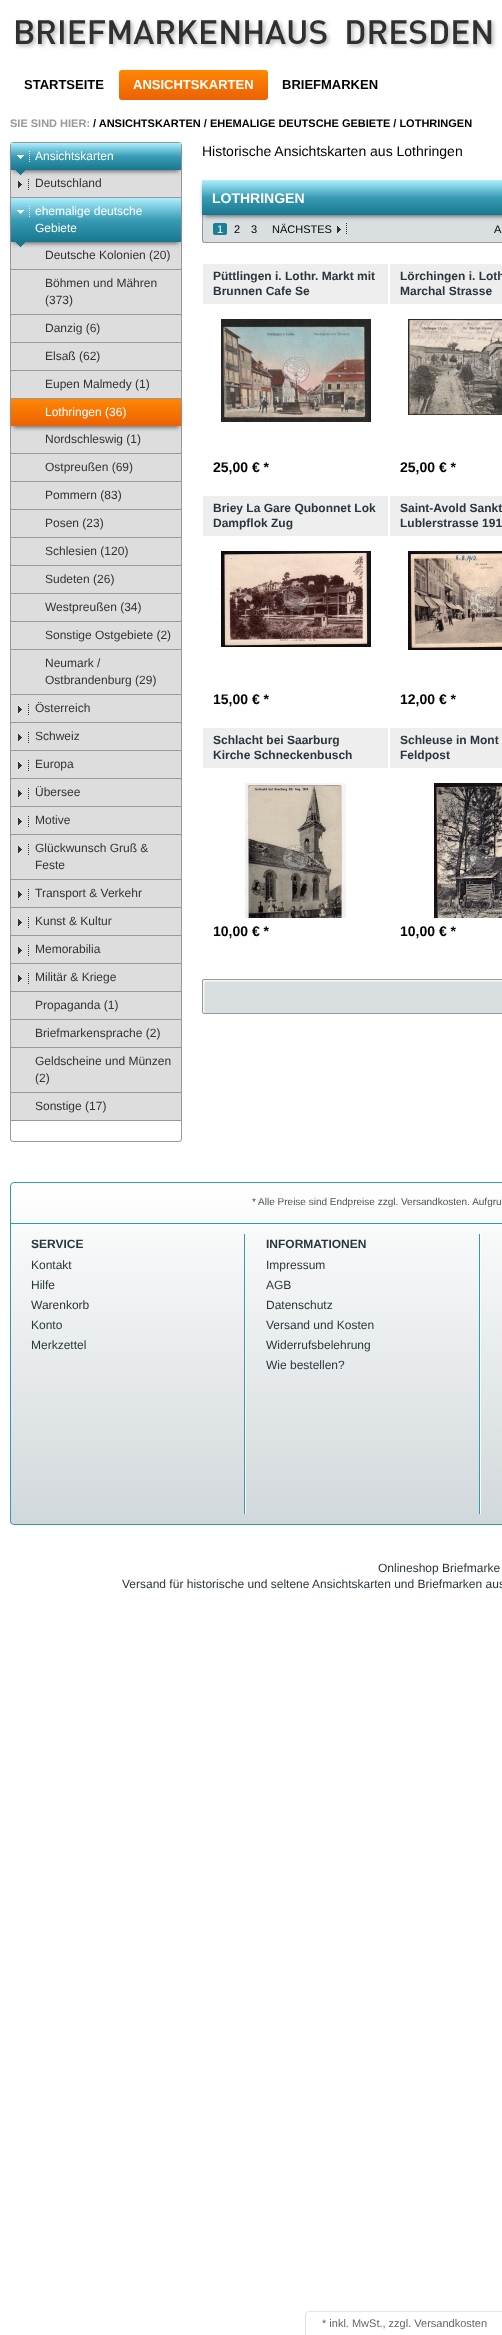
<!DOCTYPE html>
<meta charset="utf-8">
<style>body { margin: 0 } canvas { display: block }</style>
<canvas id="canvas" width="502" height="2335"></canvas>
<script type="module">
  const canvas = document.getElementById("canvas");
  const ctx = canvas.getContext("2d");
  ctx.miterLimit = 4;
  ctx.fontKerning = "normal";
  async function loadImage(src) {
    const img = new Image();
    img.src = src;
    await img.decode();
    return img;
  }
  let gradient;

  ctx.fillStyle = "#ffffff";
  ctx.fillRect(0, 0, 502, 2335);
  ctx.drawImage(await loadImage("img1.png"), 15, 19, 482, 30);
  ctx.font = "bold 13px Liberation Sans";
  ctx.fillStyle = "#000000";
  ctx.fillText("STARTSEITE", 24, 89);
  gradient = ctx.createLinearGradient(194, 70, 194, 100);
  gradient.addColorStop(0, "#ff8604");
  gradient.addColorStop(1, "#ec6105");
  ctx.fillStyle = gradient;
  ctx.beginPath();
  ctx.roundRect(119, 70, 149, 30, 3);
  ctx.fill();
  ctx.fillStyle = "#ffffff";
  ctx.fillText("ANSICHTSKARTEN", 133, 89);
  ctx.fillStyle = "#000000";
  ctx.fillText("BRIEFMARKEN", 282, 89);
  ctx.font = "bold 11px Liberation Sans";
  ctx.fillStyle = "#999999";
  ctx.fillText("SIE SIND HIER:", 10, 127);
  ctx.fillStyle = "#000000";
  ctx.fillText("/ ANSICHTSKARTEN / EHEMALIGE DEUTSCHE GEBIETE / LOTHRINGEN", 93, 127);
  ctx.beginPath();
  ctx.roundRect(10.5, 142.5, 171, 999, 2.5);
  ctx.strokeStyle = "#999999";
  ctx.stroke();
  ctx.fillStyle = "#dddddd";
  ctx.fillRect(11, 170, 170, 950);
  ctx.drawImage(await loadImage("img4.png"), 18, 179, 11, 11);
  ctx.fillStyle = "#555555";
  ctx.filter = "blur(2.5px)";
  ctx.beginPath();
  ctx.rect(13, 148, 166, 23);
  ctx.fill();
  ctx.filter = "none";
  gradient = ctx.createLinearGradient(96, 143, 96, 170);
  gradient.addColorStop(0, "#adefff");
  gradient.addColorStop(0.5, "#389cb4");
  gradient.addColorStop(1, "#18778e");
  ctx.fillStyle = gradient;
  ctx.fillRect(11, 143, 170, 27);
  ctx.drawImage(await loadImage("img2.png"), 17, 151, 13, 11);
  ctx.drawImage(await loadImage("img3.png"), 16, 170, 9, 6);
  ctx.font = "12px Liberation Sans";
  ctx.fillStyle = "#ffffff";
  ctx.fillText("Ansichtskarten", 35, 160);
  ctx.fillStyle = "#999999";
  ctx.fillRect(11, 197, 170, 1);
  ctx.fillStyle = "#333333";
  ctx.fillText("Deutschland", 35, 187);
  ctx.fillStyle = "#555555";
  ctx.filter = "blur(2.5px)";
  ctx.beginPath();
  ctx.rect(13, 203, 166, 40);
  ctx.fill();
  ctx.filter = "none";
  gradient = ctx.createLinearGradient(96, 198, 96, 242);
  gradient.addColorStop(0, "#adefff");
  gradient.addColorStop(0.5, "#389cb4");
  gradient.addColorStop(1, "#18778e");
  ctx.fillStyle = gradient;
  ctx.fillRect(11, 198, 170, 44);
  ctx.drawImage(await loadImage("img5.png"), 17, 206, 13, 11);
  ctx.drawImage(await loadImage("img3.png"), 16, 242, 9, 6);
  ctx.fillStyle = "#ffffff";
  ctx.fillText("ehemalige deutsche", 35, 215);
  ctx.fillText("Gebiete", 35, 232);
  ctx.fillStyle = "#999999";
  ctx.fillRect(11, 269, 170, 1);
  ctx.fillStyle = "#333333";
  ctx.fillText("Deutsche Kolonien (20)", 45, 259);
  ctx.fillStyle = "#999999";
  ctx.fillRect(11, 314, 170, 1);
  ctx.fillStyle = "#333333";
  ctx.fillText("Böhmen und Mähren", 45, 287);
  ctx.fillText("(373)", 45, 304);
  ctx.fillStyle = "#999999";
  ctx.fillRect(11, 342, 170, 1);
  ctx.fillStyle = "#333333";
  ctx.fillText("Danzig (6)", 45, 332);
  ctx.fillStyle = "#999999";
  ctx.fillRect(11, 370, 170, 1);
  ctx.fillStyle = "#333333";
  ctx.fillText("Elsaß (62)", 45, 360);
  ctx.fillStyle = "#999999";
  ctx.fillRect(11, 398, 170, 1);
  ctx.fillStyle = "#333333";
  ctx.fillText("Eupen Malmedy (1)", 45, 388);
  ctx.fillStyle = "#555555";
  ctx.filter = "blur(2.5px)";
  ctx.beginPath();
  ctx.rect(13, 404, 166, 23);
  ctx.fill();
  ctx.filter = "none";
  gradient = ctx.createLinearGradient(96, 399, 96, 426);
  gradient.addColorStop(0, "#ff8604");
  gradient.addColorStop(1, "#ec6105");
  ctx.fillStyle = gradient;
  ctx.fillRect(11, 399, 170, 27);
  ctx.fillStyle = "#ffffff";
  ctx.fillText("Lothringen (36)", 45, 416);
  ctx.fillStyle = "#999999";
  ctx.fillRect(11, 453, 170, 1);
  ctx.fillStyle = "#333333";
  ctx.fillText("Nordschleswig (1)", 45, 443);
  ctx.fillStyle = "#999999";
  ctx.fillRect(11, 481, 170, 1);
  ctx.fillStyle = "#333333";
  ctx.fillText("Ostpreußen (69)", 45, 471);
  ctx.fillStyle = "#999999";
  ctx.fillRect(11, 509, 170, 1);
  ctx.fillStyle = "#333333";
  ctx.fillText("Pommern (83)", 45, 499);
  ctx.fillStyle = "#999999";
  ctx.fillRect(11, 537, 170, 1);
  ctx.fillStyle = "#333333";
  ctx.fillText("Posen (23)", 45, 527);
  ctx.fillStyle = "#999999";
  ctx.fillRect(11, 565, 170, 1);
  ctx.fillStyle = "#333333";
  ctx.fillText("Schlesien (120)", 45, 555);
  ctx.fillStyle = "#999999";
  ctx.fillRect(11, 593, 170, 1);
  ctx.fillStyle = "#333333";
  ctx.fillText("Sudeten (26)", 45, 583);
  ctx.fillStyle = "#999999";
  ctx.fillRect(11, 621, 170, 1);
  ctx.fillStyle = "#333333";
  ctx.fillText("Westpreußen (34)", 45, 611);
  ctx.fillStyle = "#999999";
  ctx.fillRect(11, 649, 170, 1);
  ctx.fillStyle = "#333333";
  ctx.fillText("Sonstige Ostgebiete (2)", 45, 639);
  ctx.fillStyle = "#999999";
  ctx.fillRect(11, 694, 170, 1);
  ctx.fillStyle = "#333333";
  ctx.fillText("Neumark /", 45, 667);
  ctx.fillText("Ostbrandenburg (29)", 45, 684);
  ctx.fillStyle = "#999999";
  ctx.fillRect(11, 722, 170, 1);
  ctx.drawImage(await loadImage("img4.png"), 18, 704, 11, 11);
  ctx.fillStyle = "#333333";
  ctx.fillText("Österreich", 35, 712);
  ctx.fillStyle = "#999999";
  ctx.fillRect(11, 750, 170, 1);
  ctx.drawImage(await loadImage("img4.png"), 18, 732, 11, 11);
  ctx.fillStyle = "#333333";
  ctx.fillText("Schweiz", 35, 740);
  ctx.fillStyle = "#999999";
  ctx.fillRect(11, 778, 170, 1);
  ctx.drawImage(await loadImage("img4.png"), 18, 760, 11, 11);
  ctx.fillStyle = "#333333";
  ctx.fillText("Europa", 35, 768);
  ctx.fillStyle = "#999999";
  ctx.fillRect(11, 806, 170, 1);
  ctx.drawImage(await loadImage("img4.png"), 18, 788, 11, 11);
  ctx.fillStyle = "#333333";
  ctx.fillText("Übersee", 35, 796);
  ctx.fillStyle = "#999999";
  ctx.fillRect(11, 834, 170, 1);
  ctx.drawImage(await loadImage("img4.png"), 18, 816, 11, 11);
  ctx.fillStyle = "#333333";
  ctx.fillText("Motive", 35, 824);
  ctx.fillStyle = "#999999";
  ctx.fillRect(11, 879, 170, 1);
  ctx.drawImage(await loadImage("img4.png"), 18, 844, 11, 11);
  ctx.fillStyle = "#333333";
  ctx.fillText("Glückwunsch Gruß &", 35, 852);
  ctx.fillText("Feste", 35, 869);
  ctx.fillStyle = "#999999";
  ctx.fillRect(11, 907, 170, 1);
  ctx.drawImage(await loadImage("img4.png"), 18, 889, 11, 11);
  ctx.fillStyle = "#333333";
  ctx.fillText("Transport & Verkehr", 35, 897);
  ctx.fillStyle = "#999999";
  ctx.fillRect(11, 935, 170, 1);
  ctx.drawImage(await loadImage("img4.png"), 18, 917, 11, 11);
  ctx.fillStyle = "#333333";
  ctx.fillText("Kunst & Kultur", 35, 925);
  ctx.fillStyle = "#999999";
  ctx.fillRect(11, 963, 170, 1);
  ctx.drawImage(await loadImage("img4.png"), 18, 945, 11, 11);
  ctx.fillStyle = "#333333";
  ctx.fillText("Memorabilia", 35, 953);
  ctx.fillStyle = "#999999";
  ctx.fillRect(11, 991, 170, 1);
  ctx.drawImage(await loadImage("img4.png"), 18, 973, 11, 11);
  ctx.fillStyle = "#333333";
  ctx.fillText("Militär & Kriege", 35, 981);
  ctx.fillStyle = "#999999";
  ctx.fillRect(11, 1019, 170, 1);
  ctx.fillStyle = "#333333";
  ctx.fillText("Propaganda (1)", 35, 1009);
  ctx.fillStyle = "#999999";
  ctx.fillRect(11, 1047, 170, 1);
  ctx.fillStyle = "#333333";
  ctx.fillText("Briefmarkensprache (2)", 35, 1037);
  ctx.fillStyle = "#999999";
  ctx.fillRect(11, 1092, 170, 1);
  ctx.fillStyle = "#333333";
  ctx.fillText("Geldscheine und Münzen", 35, 1065);
  ctx.fillText("(2)", 35, 1082);
  ctx.fillStyle = "#999999";
  ctx.fillRect(11, 1120, 170, 1);
  ctx.fillStyle = "#333333";
  ctx.fillText("Sonstige (17)", 35, 1110);
  ctx.font = "14px Liberation Sans";
  ctx.fillStyle = "#000000";
  ctx.fillText("Historische Ansichtskarten aus Lothringen", 202, 156);
  ctx.fillStyle = "#d9dfe1";
  ctx.beginPath();
  ctx.moveTo(202, 215);
  ctx.lineTo(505, 215);
  ctx.lineTo(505, 240);
  ctx.bezierCurveTo(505, 241.5, 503.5, 243, 502, 243);
  ctx.lineTo(205, 243);
  ctx.bezierCurveTo(203.5, 243, 202, 241.5, 202, 240);
  ctx.closePath();
  ctx.fill();
  ctx.fillStyle = "#999999";
  ctx.beginPath();
  ctx.moveTo(202, 215);
  ctx.lineTo(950, 215);
  ctx.lineTo(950, 240);
  ctx.bezierCurveTo(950, 242, 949, 243, 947, 243);
  ctx.lineTo(205, 243);
  ctx.bezierCurveTo(203, 243, 202, 242, 202, 240);
  ctx.closePath();
  ctx.moveTo(203, 215);
  ctx.lineTo(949, 215);
  ctx.lineTo(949, 240);
  ctx.bezierCurveTo(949, 241, 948, 242, 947, 242);
  ctx.lineTo(205, 242);
  ctx.bezierCurveTo(204, 242, 203, 241, 203, 240);
  ctx.closePath();
  ctx.fill("evenodd");
  ctx.drawImage(await loadImage("img6.png"), 346, 223, 1, 11);
  ctx.fillStyle = "#1d7e96";
  ctx.beginPath();
  ctx.roundRect(213, 223, 14, 12, 2);
  ctx.fill();
  ctx.fillStyle = "#555555";
  ctx.filter = "blur(2.5px)";
  ctx.beginPath();
  ctx.rect(204, 185, 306, 31);
  ctx.fill();
  ctx.filter = "none";
  gradient = ctx.createLinearGradient(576, 180, 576, 215);
  gradient.addColorStop(0, "#adefff");
  gradient.addColorStop(0.5, "#389cb4");
  gradient.addColorStop(1, "#18778e");
  ctx.fillStyle = gradient;
  ctx.fillRect(202, 180, 300, 35);
  ctx.font = "bold 14px Liberation Sans";
  ctx.fillStyle = "#ffffff";
  ctx.fillText("LOTHRINGEN", 212, 203);
  ctx.font = "11px Liberation Sans";
  ctx.fillText("1", 217, 233);
  ctx.fillStyle = "#000000";
  ctx.fillText("2", 234, 233);
  ctx.fillText("3", 251, 233);
  ctx.fillText("NÄCHSTES", 272, 233);
  ctx.drawImage(await loadImage("img7.png"), 337, 226, 4, 7);
  ctx.fillText("A", 494, 233);
  ctx.fillStyle = "#eeeeee";
  ctx.fillRect(203, 264, 185, 40);
  ctx.font = "bold 12px Liberation Sans";
  ctx.fillStyle = "#29373c";
  ctx.fillText("Püttlingen i. Lothr. Markt mit", 213, 280);
  ctx.fillText("Brunnen Cafe Se", 213, 295);
  ctx.drawImage(await loadImage("img8.png"), 221, 319, 150, 103);
  ctx.font = "bold 14px Liberation Sans";
  ctx.fillStyle = "#000000";
  ctx.fillText("25,00 € *", 213, 472);
  ctx.fillStyle = "#eeeeee";
  ctx.fillRect(390, 264, 112, 40);
  ctx.font = "bold 12px Liberation Sans";
  ctx.fillStyle = "#29373c";
  ctx.fillText("Lörchingen i. Loth", 400, 280);
  ctx.fillText("Marchal Strasse", 400, 295);
  ctx.drawImage(await loadImage("img9.png"), 408, 319, 94, 96);
  ctx.font = "bold 14px Liberation Sans";
  ctx.fillStyle = "#000000";
  ctx.fillText("25,00 € *", 400, 472);
  ctx.fillStyle = "#eeeeee";
  ctx.fillRect(203, 496, 185, 40);
  ctx.font = "bold 12px Liberation Sans";
  ctx.fillStyle = "#29373c";
  ctx.fillText("Briey La Gare Qubonnet Lok", 213, 512);
  ctx.fillText("Dampflok Zug", 213, 527);
  ctx.drawImage(await loadImage("img10.png"), 221, 551, 150, 96);
  ctx.font = "bold 14px Liberation Sans";
  ctx.fillStyle = "#000000";
  ctx.fillText("15,00 € *", 213, 704);
  ctx.fillStyle = "#eeeeee";
  ctx.fillRect(390, 496, 112, 40);
  ctx.font = "bold 12px Liberation Sans";
  ctx.fillStyle = "#29373c";
  ctx.fillText("Saint-Avold Sankt", 400, 512);
  ctx.fillText("Lublerstrasse 191", 400, 527);
  ctx.drawImage(await loadImage("img11.png"), 408, 551, 94, 99);
  ctx.font = "bold 14px Liberation Sans";
  ctx.fillStyle = "#000000";
  ctx.fillText("12,00 € *", 400, 704);
  ctx.fillStyle = "#eeeeee";
  ctx.fillRect(203, 728, 185, 40);
  ctx.font = "bold 12px Liberation Sans";
  ctx.fillStyle = "#29373c";
  ctx.fillText("Schlacht bei Saarburg", 213, 744);
  ctx.fillText("Kirche Schneckenbusch", 213, 759);
  ctx.drawImage(await loadImage("img12.png"), 245, 783, 101, 135);
  ctx.font = "bold 14px Liberation Sans";
  ctx.fillStyle = "#000000";
  ctx.fillText("10,00 € *", 213, 936);
  ctx.fillStyle = "#eeeeee";
  ctx.fillRect(390, 728, 112, 40);
  ctx.font = "bold 12px Liberation Sans";
  ctx.fillStyle = "#29373c";
  ctx.fillText("Schleuse in Mont", 400, 744);
  ctx.fillText("Feldpost", 400, 759);
  ctx.drawImage(await loadImage("img13.png"), 434, 783, 68, 135);
  ctx.font = "bold 14px Liberation Sans";
  ctx.fillStyle = "#000000";
  ctx.fillText("10,00 € *", 400, 936);
  ctx.fillStyle = "#d9dfe1";
  ctx.beginPath();
  ctx.roundRect(202, 979, 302, 35, 2);
  ctx.fill();
  ctx.drawImage(await loadImage("img14.png"), 203, 980, 299, 34);
  ctx.beginPath();
  ctx.roundRect(202.5, 979.5, 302, 34, 1.5);
  ctx.stroke();
  ctx.save();
  ctx.beginPath();
  ctx.roundRect(10, 1182, 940, 343, 4);
  ctx.clip();
  gradient = ctx.createLinearGradient(480, 1183, 480, 1524);
  gradient.addColorStop(0, "#ffffff");
  gradient.addColorStop(1, "#d1d8db");
  ctx.fillStyle = gradient;
  ctx.fillRect(10, 1183, 492, 341);
  ctx.restore();
  ctx.beginPath();
  ctx.roundRect(10.5, 1182.5, 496, 342, 3.5);
  ctx.strokeStyle = "#3799b1";
  ctx.stroke();
  ctx.fillStyle = "#3799b1";
  ctx.fillRect(11, 1223, 491, 1);
  ctx.font = "10px Liberation Sans";
  ctx.fillStyle = "#515353";
  ctx.fillText("* Alle Preise sind Endpreise zzgl. Versandkosten. Aufgru", 252, 1205);
  ctx.fillStyle = "#3799b1";
  ctx.fillRect(244, 1234, 1, 280);
  ctx.font = "bold 12px Liberation Sans";
  ctx.fillStyle = "#29373c";
  ctx.fillText("SERVICE", 31, 1248);
  ctx.font = "12px Liberation Sans";
  ctx.fillText("Kontakt", 31, 1269);
  ctx.fillText("Hilfe", 31, 1289);
  ctx.fillText("Warenkorb", 31, 1309);
  ctx.fillText("Konto", 31, 1329);
  ctx.fillText("Merkzettel", 31, 1349);
  ctx.fillStyle = "#3799b1";
  ctx.fillRect(479, 1234, 1, 280);
  ctx.fillStyle = "#ffffff";
  ctx.fillRect(245, 1234, 1, 280);
  ctx.font = "bold 12px Liberation Sans";
  ctx.fillStyle = "#29373c";
  ctx.fillText("INFORMATIONEN", 266, 1248);
  ctx.font = "12px Liberation Sans";
  ctx.fillText("Impressum", 266, 1269);
  ctx.fillText("AGB", 266, 1289);
  ctx.fillText("Datenschutz", 266, 1309);
  ctx.fillText("Versand und Kosten", 266, 1329);
  ctx.fillText("Widerrufsbelehrung", 266, 1349);
  ctx.fillText("Wie bestellen?", 266, 1369);
  ctx.fillStyle = "#ffffff";
  ctx.fillRect(480, 1234, 1, 280);
  ctx.fillStyle = "#29373c";
  ctx.fillText("Onlineshop Briefmarke", 378, 1572);
  ctx.fillText("Versand für historische und seltene Ansichtskarten und Briefmarken aus", 122, 1588);
  ctx.drawImage(await loadImage("img15.png"), 305, 2311, 197, 24);
  ctx.font = "11px Liberation Sans";
  ctx.fillStyle = "#666666";
  ctx.fillText("* inkl. MwSt., zzgl. Versandkosten", 322, 2327);
</script>
